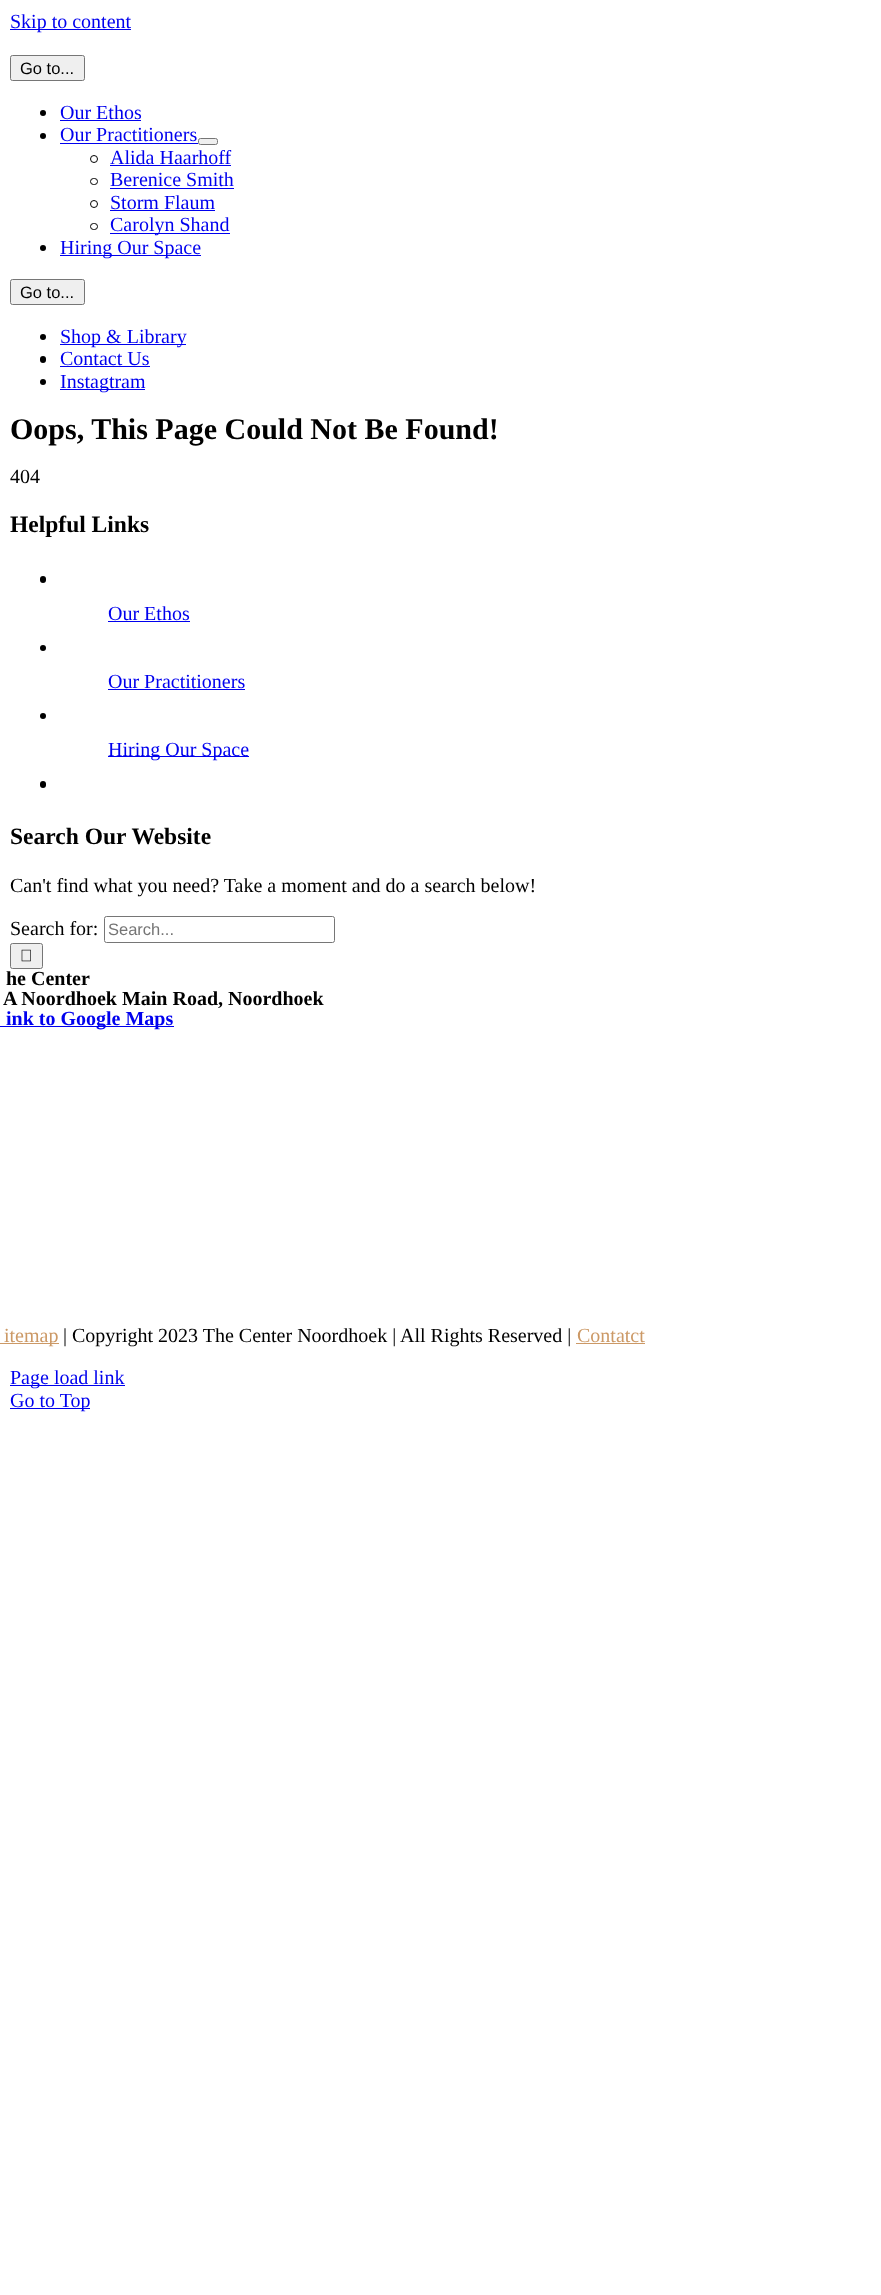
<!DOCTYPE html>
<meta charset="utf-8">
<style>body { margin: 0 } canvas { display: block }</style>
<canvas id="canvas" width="881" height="2295"></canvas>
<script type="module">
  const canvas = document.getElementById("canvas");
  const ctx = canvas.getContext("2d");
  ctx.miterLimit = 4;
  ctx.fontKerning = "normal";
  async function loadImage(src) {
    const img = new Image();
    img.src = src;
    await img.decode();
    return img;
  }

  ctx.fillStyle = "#ffffff";
  ctx.fillRect(0, 0, 881, 2295);
  ctx.fillStyle = "#0000ee";
  ctx.fillRect(10, 29, 121, 1);
  ctx.font = "20px Liberation Serif";
  ctx.fillText("Skip to content", 10, 28);
  ctx.fillStyle = "#efefef";
  ctx.beginPath();
  ctx.roundRect(10.5, 55.5, 74, 25, 2);
  ctx.fill();
  ctx.strokeStyle = "#767676";
  ctx.stroke();
  ctx.font = "16.5px Liberation Sans";
  ctx.fillStyle = "#000000";
  ctx.fillText("Go to...", 20, 74);
  ctx.beginPath();
  ctx.arc(43, 113, 3, 0, Math.PI * 2);
  ctx.fill();
  ctx.font = "20px Liberation Serif";
  ctx.fillStyle = "#0000ee";
  ctx.fillText("Our Ethos", 60, 119);
  ctx.fillRect(60, 120, 81, 1);
  ctx.fillStyle = "#000000";
  ctx.beginPath();
  ctx.arc(43, 136, 3, 0, Math.PI * 2);
  ctx.fill();
  ctx.fillStyle = "#0000ee";
  ctx.fillText("Our Practitioners", 60, 141);
  ctx.fillRect(60, 143, 138, 1);
  ctx.fillStyle = "#efefef";
  ctx.beginPath();
  ctx.roundRect(198.5, 138.5, 19, 6, 2);
  ctx.fill();
  ctx.stroke();
  ctx.beginPath();
  ctx.arc(94, 159, 3.5, 0, Math.PI * 2);
  ctx.strokeStyle = "#000000";
  ctx.stroke();
  ctx.fillStyle = "#0000ee";
  ctx.fillText("Alida Haarhoff", 110, 164);
  ctx.fillRect(110, 165, 121, 1);
  ctx.beginPath();
  ctx.roundRect(90.5, 178.5, 7, 6, 3);
  ctx.stroke();
  ctx.fillText("Berenice Smith", 110, 186);
  ctx.fillRect(110, 188, 124, 1);
  ctx.beginPath();
  ctx.arc(94, 204, 3.5, 0, Math.PI * 2);
  ctx.stroke();
  ctx.fillText("Storm Flaum", 110, 209);
  ctx.fillRect(110, 210, 105, 1);
  ctx.beginPath();
  ctx.roundRect(90.5, 223.5, 7, 6, 3);
  ctx.stroke();
  ctx.fillRect(110, 233, 120, 1);
  ctx.fillText("Carolyn Shand", 110, 231);
  ctx.fillStyle = "#000000";
  ctx.beginPath();
  ctx.arc(43, 248, 3, 0, Math.PI * 2);
  ctx.fill();
  ctx.fillStyle = "#0000ee";
  ctx.fillRect(60, 255, 141, 1);
  ctx.fillText("Hiring Our Space", 60, 254);
  ctx.fillStyle = "#efefef";
  ctx.beginPath();
  ctx.roundRect(10.5, 279.5, 74, 25, 2);
  ctx.fill();
  ctx.strokeStyle = "#767676";
  ctx.stroke();
  ctx.font = "16.5px Liberation Sans";
  ctx.fillStyle = "#000000";
  ctx.fillText("Go to...", 20, 298);
  ctx.beginPath();
  ctx.arc(43, 337, 3, 0, Math.PI * 2);
  ctx.fill();
  ctx.fillStyle = "#0000ee";
  ctx.fillRect(60, 344, 126, 1);
  ctx.font = "20px Liberation Serif";
  ctx.fillText("Shop & Library", 60, 343);
  ctx.fillStyle = "#000000";
  ctx.beginPath();
  ctx.roundRect(40, 356, 6, 7, 3);
  ctx.fill();
  ctx.fillStyle = "#0000ee";
  ctx.fillText("Contact Us", 60, 365);
  ctx.fillRect(60, 366, 90, 1);
  ctx.fillStyle = "#000000";
  ctx.beginPath();
  ctx.arc(43, 382, 3, 0, Math.PI * 2);
  ctx.fill();
  ctx.fillStyle = "#0000ee";
  ctx.fillRect(60, 389, 85, 1);
  ctx.fillText("Instagtram", 60, 388);
  ctx.font = "bold 30px Liberation Serif";
  ctx.fillStyle = "#000000";
  ctx.fillText("Oops, This Page Could Not Be Found!", 10, 439);
  ctx.font = "20px Liberation Serif";
  ctx.fillText("404", 10, 483);
  ctx.font = "bold 23.5px Liberation Serif";
  ctx.fillText("Helpful Links", 10, 532);
  ctx.beginPath();
  ctx.roundRect(40, 576, 6, 7, 3);
  ctx.fill();
  ctx.font = "20px Liberation Serif";
  ctx.fillStyle = "#0000ee";
  ctx.fillText("Our Ethos", 108, 620);
  ctx.fillRect(108, 621, 82, 1);
  ctx.fillStyle = "#000000";
  ctx.beginPath();
  ctx.arc(43, 648, 3, 0, Math.PI * 2);
  ctx.fill();
  ctx.fillStyle = "#0000ee";
  ctx.fillText("Our Practitioners", 108, 688);
  ctx.fillRect(108, 689, 137, 1);
  ctx.fillStyle = "#000000";
  ctx.beginPath();
  ctx.arc(43, 716, 3, 0, Math.PI * 2);
  ctx.fill();
  ctx.fillStyle = "#0000ee";
  ctx.fillRect(108, 756, 141, 1);
  ctx.fillText("Hiring Our Space", 108, 756);
  ctx.fillStyle = "#000000";
  ctx.beginPath();
  ctx.roundRect(40, 781, 6, 7, 3);
  ctx.fill();
  ctx.font = "bold 23.5px Liberation Serif";
  ctx.fillText("Search Our Website", 10, 844);
  ctx.font = "20px Liberation Serif";
  ctx.fillText("Can't find what you need? Take a moment and do a search below!", 10, 892);
  ctx.fillText("Search for:", 10, 935);
  ctx.beginPath();
  ctx.roundRect(104.5, 916.5, 230, 26, 2);
  ctx.stroke();
  ctx.font = "16.5px Liberation Sans";
  ctx.fillStyle = "#757575";
  ctx.fillText("Search...", 108, 935);
  ctx.fillStyle = "#efefef";
  ctx.beginPath();
  ctx.roundRect(10.5, 943.5, 32, 25, 2);
  ctx.fill();
  ctx.stroke();
  ctx.drawImage(await loadImage("img1.png"), 21, 949, 10, 13);
  ctx.font = "bold 20px Liberation Serif";
  ctx.fillStyle = "#000000";
  ctx.fillText("he Center", 6, 985);
  ctx.fillText("A Noordhoek Main Road, Noordhoek", 3, 1005);
  ctx.fillStyle = "#0000ee";
  ctx.fillRect(0, 1026, 174, 1);
  ctx.fillText("ink to Google Maps", 6, 1025);
  ctx.fillStyle = "#cc9966";
  ctx.fillRect(0, 1343, 59, 1);
  ctx.font = "20px Liberation Serif";
  ctx.fillText("itemap", 4, 1342);
  ctx.fillStyle = "#000000";
  ctx.fillText("| Copyright 2023 The Center Noordhoek | All Rights Reserved |", 63, 1342);
  ctx.fillStyle = "#cc9966";
  ctx.fillText("Contatct", 577, 1342);
  ctx.fillRect(576, 1343, 69, 1);
  ctx.fillStyle = "#0000ee";
  ctx.fillRect(10, 1385, 115, 1);
  ctx.fillText("Page load link", 10, 1384);
  ctx.fillRect(10, 1408, 80, 1);
  ctx.fillText("Go to Top", 10, 1407);
</script>
